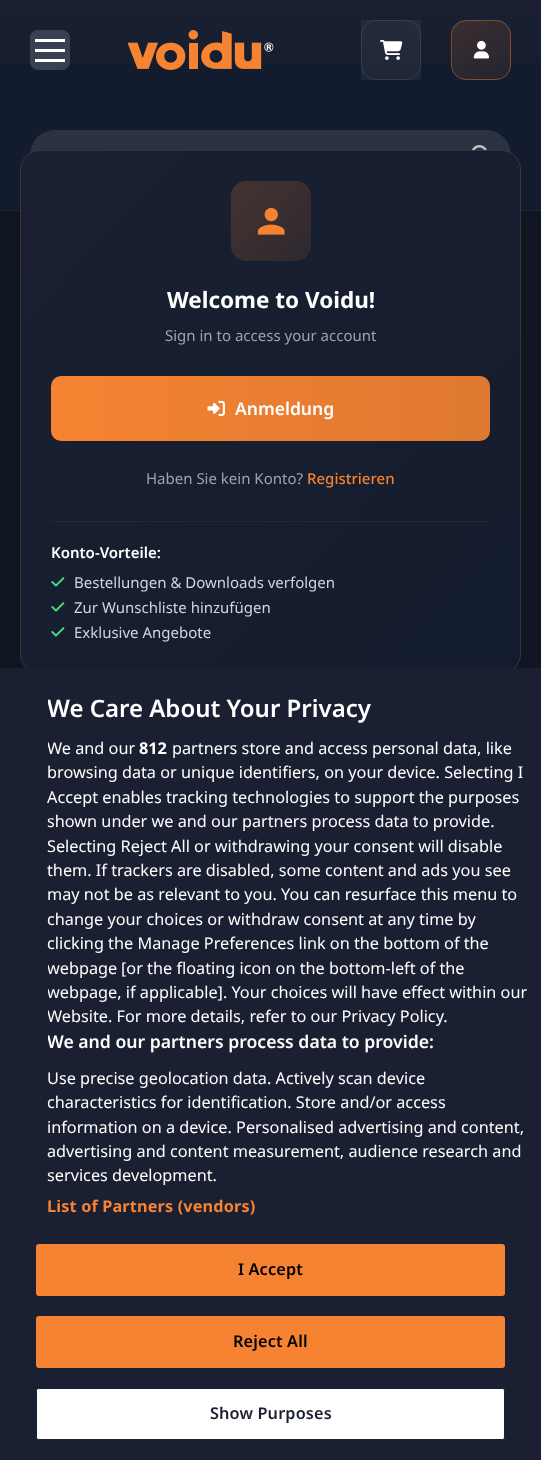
<!DOCTYPE html>
<meta charset="utf-8">
<style>body { margin: 0 } canvas { display: block }</style>
<canvas id="canvas" width="541" height="1460"></canvas>
<script type="module">
  const canvas = document.getElementById("canvas");
  const ctx = canvas.getContext("2d");
  ctx.miterLimit = 4;
  ctx.fontKerning = "normal";
  async function loadImage(src) {
    const img = new Image();
    img.src = src;
    await img.decode();
    return img;
  }
  let gradient;

  ctx.fillStyle = "#131c2e";
  ctx.fillRect(0, 0, 541, 1460);
  ctx.fillStyle = "#1f2738";
  ctx.fillRect(0, 210, 541, 1);
  ctx.fillStyle = "rgba(255, 255, 255, 0.1)";
  ctx.beginPath();
  ctx.roundRect(30, 130, 481, 50, 25);
  ctx.fill();
  ctx.drawImage(await loadImage("img1.png"), 472, 145, 15, 5);
  ctx.fillStyle = "#0f1521";
  ctx.fillRect(0, 211, 541, 457);
  gradient = ctx.createLinearGradient(271, 0, 271, 100);
  gradient.addColorStop(0, "#1a2031");
  gradient.addColorStop(1, "#131c2e");
  ctx.fillStyle = gradient;
  ctx.fillRect(0, 0, 541, 64);
  ctx.fillStyle = "#374151";
  ctx.beginPath();
  ctx.roundRect(30, 30, 40, 40, 8);
  ctx.fill();
  ctx.fillStyle = "#ffffff";
  ctx.fillRect(35, 39, 30, 3);
  ctx.fillRect(35, 49, 30, 3);
  ctx.fillRect(35, 59, 30, 3);
  ctx.drawImage(await loadImage("img2.png"), 128, 30, 146, 40);
  ctx.fillStyle = "rgba(255, 255, 255, 0.05)";
  ctx.fillRect(361, 20, 60, 60);
  ctx.beginPath();
  ctx.roundRect(361.5, 20.5, 59, 59, 14.5);
  ctx.strokeStyle = "rgba(255, 255, 255, 0.1)";
  ctx.stroke();
  ctx.drawImage(await loadImage("img3.png"), 380, 40, 23, 20);
  ctx.save();
  ctx.beginPath();
  ctx.roundRect(451, 20, 60, 60, 15);
  ctx.clip();
  gradient = ctx.createLinearGradient(453, -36, 510, 21);
  gradient.addColorStop(0, "#3a2e30");
  gradient.addColorStop(1, "#2b2730");
  ctx.fillStyle = gradient;
  ctx.fillRect(453, 20, 48, 1);
  gradient = ctx.createLinearGradient(395, 21, 453, 79);
  gradient.addColorStop(0, "rgba(245, 131, 49, 0.15)");
  gradient.addColorStop(1, "rgba(245, 131, 49, 0.08)");
  ctx.fillStyle = gradient;
  ctx.fillRect(451, 21, 2, 58);
  gradient = ctx.createLinearGradient(453, 21, 510, 79);
  gradient.addColorStop(0, "rgba(245, 131, 49, 0.15)");
  gradient.addColorStop(1, "rgba(245, 131, 49, 0.08)");
  ctx.fillStyle = gradient;
  ctx.fillRect(453, 21, 57, 58);
  gradient = ctx.createLinearGradient(510, 21, 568, 79);
  gradient.addColorStop(0, "rgba(245, 131, 49, 0.15)");
  gradient.addColorStop(1, "rgba(245, 131, 49, 0.08)");
  ctx.fillStyle = gradient;
  ctx.fillRect(510, 30, 1, 40);
  gradient = ctx.createLinearGradient(453, 79, 510, 136);
  gradient.addColorStop(0, "#362c2f");
  gradient.addColorStop(1, "#26252f");
  ctx.fillStyle = gradient;
  ctx.fillRect(453, 79, 48, 1);
  ctx.restore();
  ctx.beginPath();
  ctx.roundRect(451.5, 20.5, 59, 59, 14.5);
  ctx.strokeStyle = "rgba(245, 131, 49, 0.4)";
  ctx.stroke();
  ctx.drawImage(await loadImage("img4.png"), 473, 40, 17, 19);
  ctx.save();
  ctx.beginPath();
  ctx.roundRect(20, 150, 501, 524, 20);
  ctx.clip();
  gradient = ctx.createLinearGradient(10, -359, 531, 140);
  gradient.addColorStop(0, "#1a2031");
  gradient.addColorStop(1, "#131c2e");
  ctx.fillStyle = gradient;
  ctx.fillRect(34, 150, 473, 1);
  gradient = ctx.createLinearGradient(-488, 163, 32, 661);
  gradient.addColorStop(0, "#1a2031");
  gradient.addColorStop(1, "#131c2e");
  ctx.fillStyle = gradient;
  ctx.fillRect(20, 164, 1, 496);
  gradient = ctx.createLinearGradient(10, 163, 531, 661);
  gradient.addColorStop(0, "#1a2031");
  gradient.addColorStop(1, "#131c2e");
  ctx.fillStyle = gradient;
  ctx.fillRect(21, 151, 499, 517);
  gradient = ctx.createLinearGradient(509, 163, 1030, 661);
  gradient.addColorStop(0, "#1a2031");
  gradient.addColorStop(1, "#131c2e");
  ctx.fillStyle = gradient;
  ctx.fillRect(520, 164, 1, 496);
  ctx.restore();
  ctx.beginPath();
  ctx.roundRect(20.5, 150.5, 500, 523, 19.5);
  ctx.strokeStyle = "rgba(245, 131, 49, 0.2)";
  ctx.stroke();
  gradient = ctx.createLinearGradient(231, 181, 311, 261);
  gradient.addColorStop(0, "#443330");
  gradient.addColorStop(1, "#2e2930");
  ctx.fillStyle = gradient;
  ctx.beginPath();
  ctx.roundRect(231, 181, 80, 80, 15);
  ctx.fill();
  ctx.drawImage(await loadImage("img5.png"), 257, 207, 28, 28);
  ctx.font = "bold 22.5px Noto Sans";
  ctx.fillStyle = "#ffffff";
  ctx.fillText("Welcome to Voidu!", 167, 308);
  ctx.font = "15px Noto Sans";
  ctx.fillStyle = "#9ca3af";
  ctx.fillText("Sign in to access your account", 165, 341);
  gradient = ctx.createLinearGradient(51, 409, 490, 409);
  gradient.addColorStop(0, "#f58331");
  gradient.addColorStop(1, "rgba(245, 131, 49, 0.9)");
  ctx.fillStyle = gradient;
  ctx.beginPath();
  ctx.roundRect(51, 376, 439, 65, 10);
  ctx.fill();
  ctx.drawImage(await loadImage("img6.png"), 207, 400, 18, 17);
  ctx.font = "600 17.5px Noto Sans";
  ctx.fillStyle = "#ffffff";
  ctx.fillText("Anmeldung", 235, 415);
  ctx.font = "15px Noto Sans";
  ctx.fillStyle = "#9ca3af";
  ctx.fillText("Haben Sie kein Konto?", 146, 484);
  ctx.font = "500 15px Noto Sans";
  ctx.fillStyle = "#f58331";
  ctx.fillText("Registrieren", 307, 484);
  ctx.fillStyle = "rgba(55, 65, 81, 0.3)";
  ctx.fillRect(51, 521, 439, 1);
  ctx.font = "600 15px Noto Sans";
  ctx.fillStyle = "#ffffff";
  ctx.fillText("Konto-Vorteile:", 51, 558);
  ctx.drawImage(await loadImage("img7.png"), 51, 577, 14, 10);
  ctx.font = "15px Noto Sans";
  ctx.fillStyle = "#d1d5db";
  ctx.fillText("Bestellungen & Downloads verfolgen", 74, 588);
  ctx.drawImage(await loadImage("img7.png"), 51, 602, 14, 10);
  ctx.fillText("Zur Wunschliste hinzufügen", 74, 613);
  ctx.drawImage(await loadImage("img8.png"), 51, 627, 14, 10);
  ctx.fillText("Exklusive Angebote", 74, 638);
  ctx.fillStyle = "#1a2031";
  ctx.fillRect(0, 668, 541, 792);
  ctx.save();
  ctx.beginPath();
  ctx.rect(48, 693, 486, 538);
  ctx.clip();
  ctx.font = "600 24px Noto Sans";
  ctx.fillStyle = "#ffffff";
  ctx.fillText("We Care About Your Privacy", 47, 717);
  ctx.font = "16.25px Noto Sans";
  ctx.fillText("We and our", 47, 754);
  ctx.restore();
  ctx.font = "bold 16.25px Noto Sans";
  ctx.fillStyle = "#ffffff";
  ctx.fillText("812", 139, 754);
  ctx.font = "16.25px Noto Sans";
  ctx.fillText("partners store and access personal data, like", 172, 754);
  ctx.fillText("browsing data or unique identifiers, on your device. Selecting I", 47, 778);
  ctx.fillText("Accept enables tracking technologies to support the purposes", 47, 803);
  ctx.fillText("shown under we and our partners process data to provide.", 47, 827);
  ctx.fillText("Selecting Reject All or withdrawing your consent will disable", 47, 852);
  ctx.fillText("them. If trackers are disabled, some content and ads you see", 47, 876);
  ctx.fillText("may not be as relevant to you. You can resurface this menu to", 47, 900);
  ctx.fillText("change your choices or withdraw consent at any time by", 47, 925);
  ctx.fillText("clicking the Manage Preferences link on the bottom of the", 47, 949);
  ctx.save();
  ctx.beginPath();
  ctx.rect(48, 693, 486, 538);
  ctx.clip();
  ctx.fillText("webpage", 47, 974);
  ctx.restore();
  ctx.fillText("[or the floating icon on the bottom-left of the", 121, 974);
  ctx.save();
  ctx.beginPath();
  ctx.rect(48, 693, 486, 538);
  ctx.clip();
  ctx.fillText("webpage, if applicable]. Your choices will have effect within our", 47, 998);
  ctx.fillText("Website. For more details, refer to our Privacy Policy.", 47, 1022);
  ctx.font = "600 17.6px Noto Sans";
  ctx.fillText("We and our partners process data to provide:", 47, 1048);
  ctx.restore();
  ctx.fillText("Use precise geolocation data. Actively scan device", 47, 1084);
  ctx.fillText("characteristics for identification. Store and/or access", 47, 1108);
  ctx.fillText("information on a device. Personalised advertising and content,", 47, 1133);
  ctx.fillText("advertising and content measurement, audience research and", 47, 1157);
  ctx.fillText("services development.", 47, 1181);
  ctx.letterSpacing = "0.15px";
  ctx.font = "bold 16.25px Noto Sans";
  ctx.fillStyle = "#f58331";
  ctx.fillText("List of Partners (vendors)", 47, 1212);
  ctx.beginPath();
  ctx.roundRect(36.5, 1244.5, 468, 51, 2);
  ctx.fill();
  ctx.strokeStyle = "#f58331";
  ctx.stroke();
  ctx.font = "600 16.25px Noto Sans";
  ctx.fillStyle = "#000000";
  ctx.fillText("I Accept", 238, 1275);
  ctx.fillStyle = "#f58331";
  ctx.beginPath();
  ctx.roundRect(36.5, 1316.5, 468, 51, 2);
  ctx.fill();
  ctx.stroke();
  ctx.fillStyle = "#000000";
  ctx.fillText("Reject All", 233, 1347);
  ctx.fillStyle = "#ffffff";
  ctx.beginPath();
  ctx.roundRect(36.5, 1388.5, 468, 51, 2);
  ctx.fill();
  ctx.strokeStyle = "#1a2031";
  ctx.stroke();
  ctx.fillStyle = "#1a2031";
  ctx.fillText("Show Purposes", 210, 1419);
</script>
